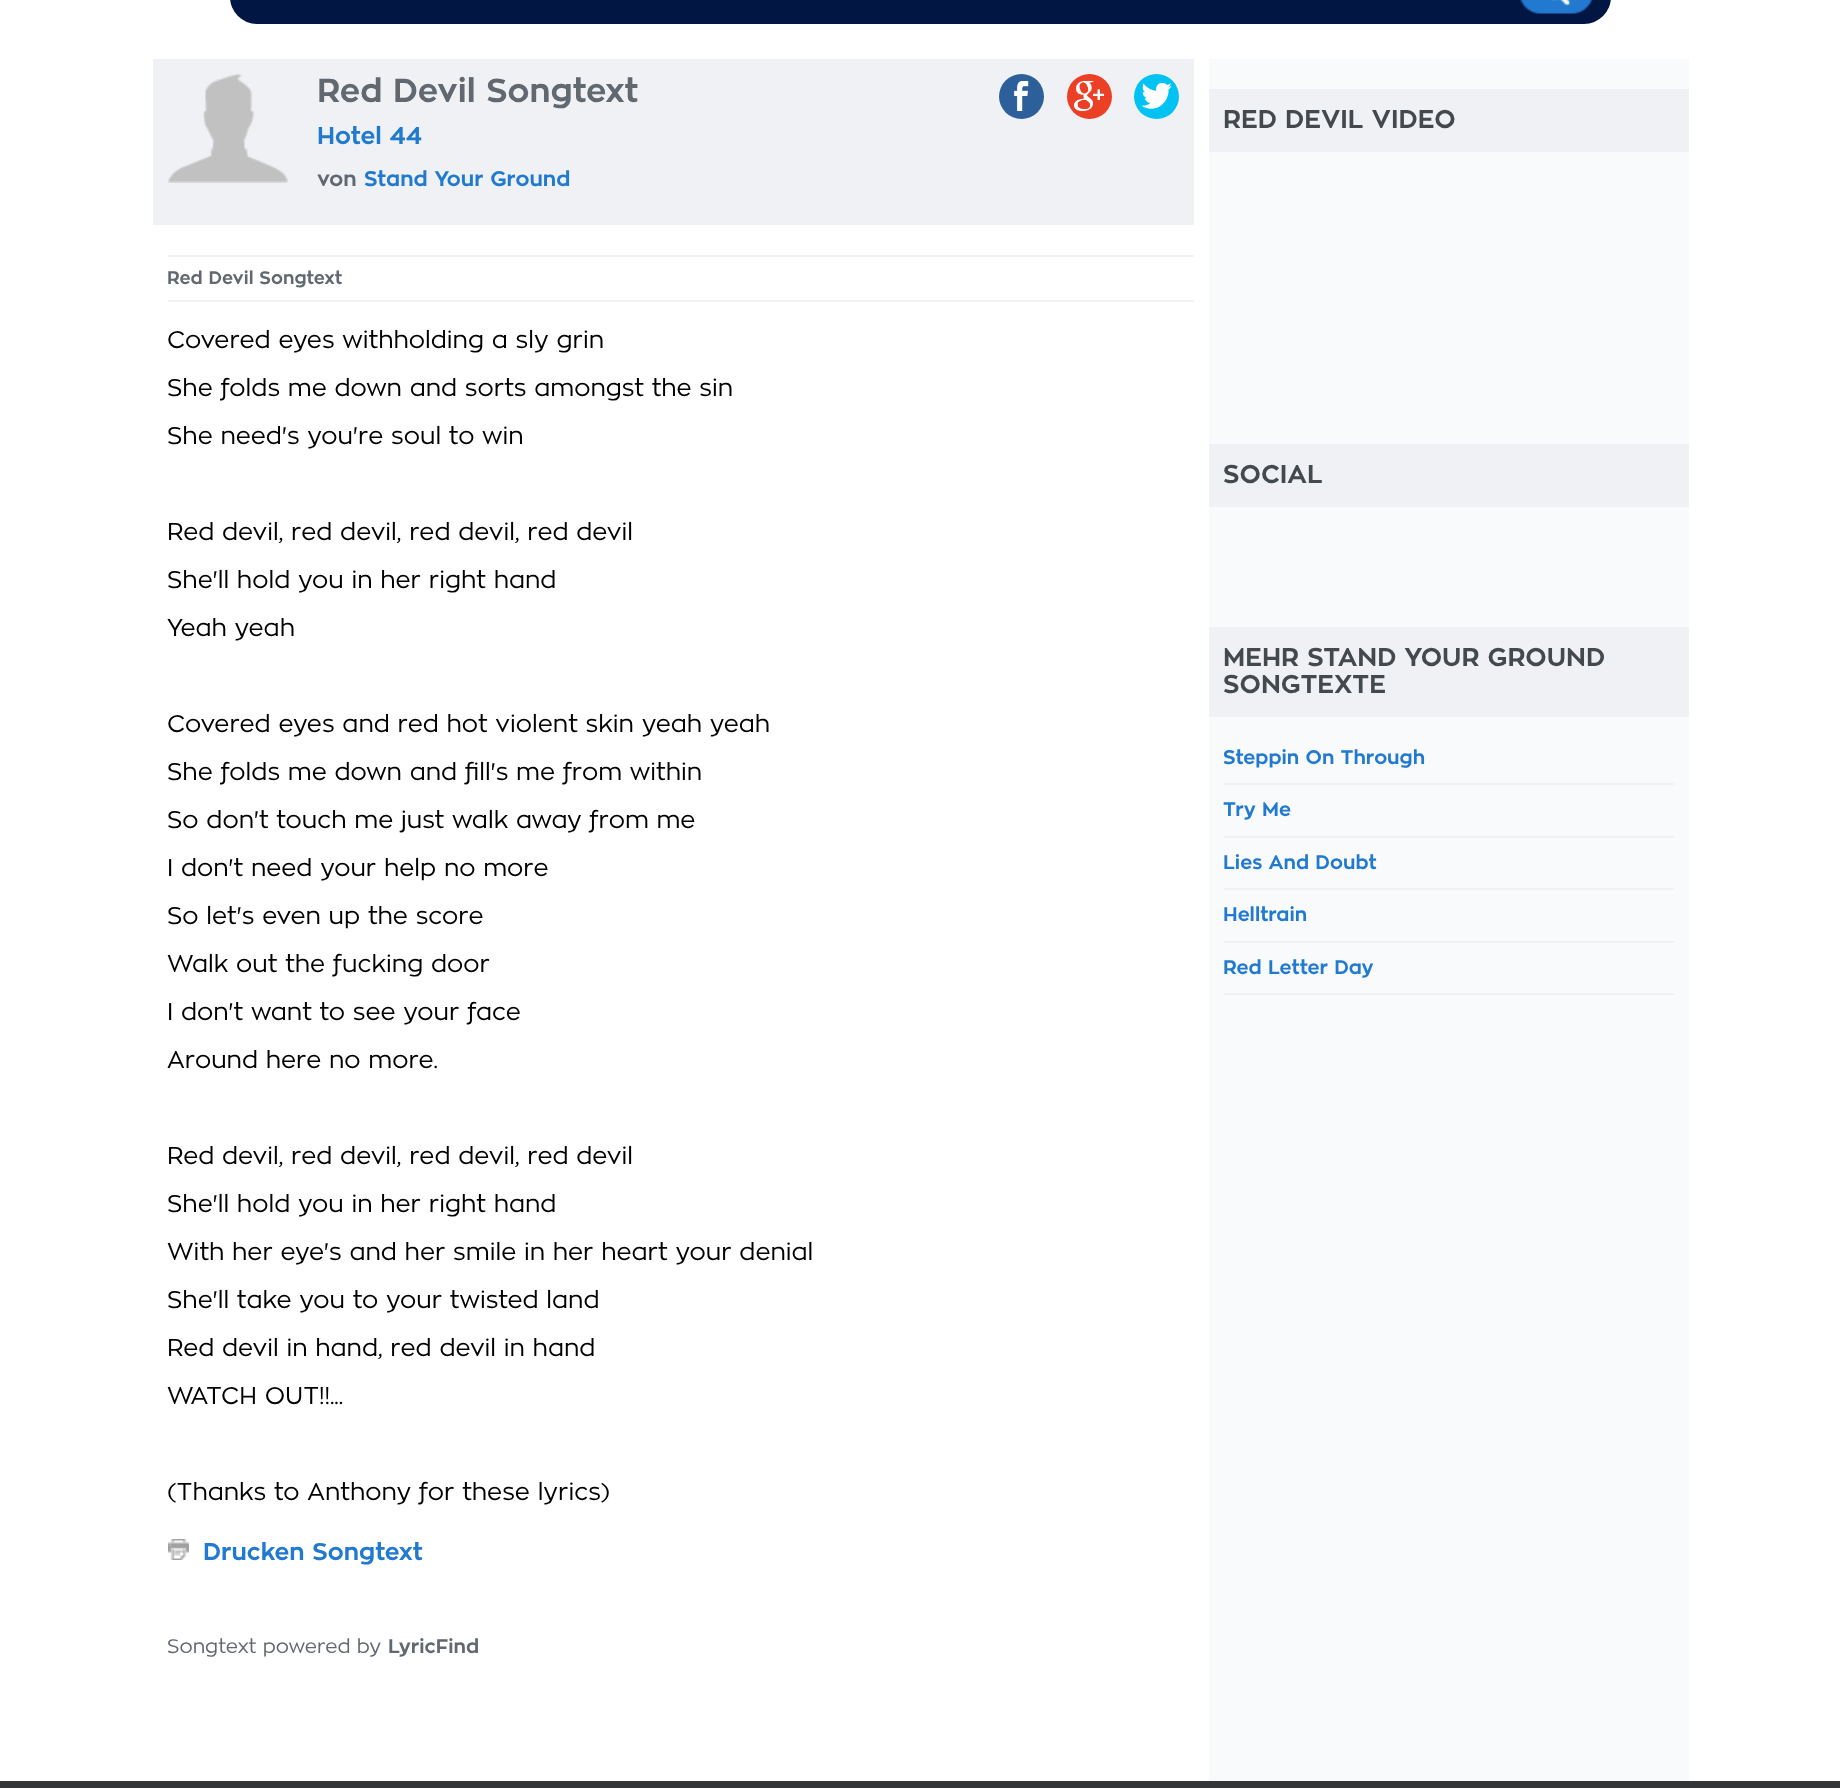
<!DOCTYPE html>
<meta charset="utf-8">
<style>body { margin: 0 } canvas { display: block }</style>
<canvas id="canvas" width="1840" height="1788"></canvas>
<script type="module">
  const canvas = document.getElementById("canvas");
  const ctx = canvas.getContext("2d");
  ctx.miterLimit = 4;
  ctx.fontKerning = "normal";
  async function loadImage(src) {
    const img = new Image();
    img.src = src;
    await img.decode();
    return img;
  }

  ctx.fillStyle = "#ffffff";
  ctx.fillRect(0, 0, 1840, 1788);
  ctx.fillStyle = "#021643";
  ctx.beginPath();
  ctx.roundRect(230, -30, 1381, 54, 30);
  ctx.fill();
  ctx.drawImage(await loadImage("img1.png"), 1520, 0, 73, 14);
  ctx.fillStyle = "#eff1f5";
  ctx.fillRect(153, 59, 1041, 166);
  ctx.drawImage(await loadImage("img2.png"), 168, 73, 120, 110);
  ctx.fillStyle = "#f1f1f1";
  ctx.fillRect(318, 209, 659, 2);
  ctx.font = "bold 33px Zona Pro";
  ctx.fillStyle = "#62686f";
  ctx.fillText("Red Devil Songtext", 317, 102);
  ctx.font = "bold 24px Zona Pro";
  ctx.fillStyle = "#217acf";
  ctx.fillText("Hotel 44", 317, 144);
  ctx.font = "bold 21px Zona Pro";
  ctx.fillStyle = "#62686f";
  ctx.fillText("von", 317, 186);
  ctx.fillStyle = "#217acf";
  ctx.fillText("Stand Your Ground", 364, 186);
  ctx.fillStyle = "#f1f1f1";
  ctx.fillRect(977, 194, 202, 2);
  ctx.fillStyle = "#2d609b";
  ctx.beginPath();
  ctx.arc(1021.5, 96.5, 22.5, 0, Math.PI * 2);
  ctx.fill();
  ctx.drawImage(await loadImage("img3.png"), 1013, 81, 16, 30);
  ctx.fillStyle = "#eb4026";
  ctx.beginPath();
  ctx.arc(1089.5, 96.5, 22.5, 0, Math.PI * 2);
  ctx.fill();
  ctx.drawImage(await loadImage("img4.png"), 1074, 81, 30, 30);
  ctx.fillStyle = "#00c3f3";
  ctx.beginPath();
  ctx.arc(1156.5, 96.5, 22.5, 0, Math.PI * 2);
  ctx.fill();
  ctx.drawImage(await loadImage("img5.png"), 1141, 83, 31, 26);
  ctx.fillStyle = "#f1f1f1";
  ctx.fillRect(168, 255, 1026, 2);
  ctx.fillRect(168, 300, 1026, 2);
  ctx.font = "bold 18px Zona Pro";
  ctx.fillStyle = "#62686f";
  ctx.fillText("Red Devil Songtext", 167, 284);
  ctx.font = "24px Zona Pro";
  ctx.fillStyle = "#000000";
  ctx.fillText("Covered eyes withholding a sly grin", 167, 348);
  ctx.fillText("She folds me down and sorts amongst the sin", 167, 396);
  ctx.fillText("She need's you're soul to win", 167, 444);
  ctx.fillText("Red devil, red devil, red devil, red devil", 167, 540);
  ctx.fillText("She'll hold you in her right hand", 167, 588);
  ctx.fillText("Yeah yeah", 167, 636);
  ctx.fillText("Covered eyes and red hot violent skin yeah yeah", 167, 732);
  ctx.fillText("She folds me down and fill's me from within", 167, 780);
  ctx.fillText("So don't touch me just walk away from me", 167, 828);
  ctx.fillText("I don't need your help no more", 167, 876);
  ctx.fillText("So let's even up the score", 167, 924);
  ctx.fillText("Walk out the fucking door", 167, 972);
  ctx.fillText("I don't want to see your face", 167, 1020);
  ctx.fillText("Around here no more.", 167, 1068);
  ctx.fillText("Red devil, red devil, red devil, red devil", 167, 1164);
  ctx.fillText("She'll hold you in her right hand", 167, 1212);
  ctx.fillText("With her eye's and her smile in her heart your denial", 167, 1260);
  ctx.fillText("She'll take you to your twisted land", 167, 1308);
  ctx.fillText("Red devil in hand, red devil in hand", 167, 1356);
  ctx.fillText("WATCH OUT!!...", 167, 1404);
  ctx.fillText("(Thanks to Anthony for these lyrics)", 167, 1500);
  ctx.drawImage(await loadImage("img6.png"), 168, 1539, 21, 21);
  ctx.font = "bold 24px Zona Pro";
  ctx.fillStyle = "#217acf";
  ctx.fillText("Drucken Songtext", 203, 1560);
  ctx.font = "19.5px Zona Pro";
  ctx.fillStyle = "#62686f";
  ctx.fillText("Songtext powered by", 167, 1653);
  ctx.font = "bold 19.5px Zona Pro";
  ctx.fillText("LyricFind", 388, 1653);
  ctx.fillStyle = "#f8fafb";
  ctx.fillRect(1209, 59, 480, 1722);
  ctx.fillStyle = "#eff1f5";
  ctx.fillRect(1209, 89, 480, 63);
  ctx.font = "bold 25.5px Zona Pro";
  ctx.fillStyle = "#44494d";
  ctx.fillText("RED DEVIL VIDEO", 1223, 128);
  ctx.fillStyle = "#eff1f5";
  ctx.fillRect(1209, 444, 480, 63);
  ctx.fillStyle = "#44494d";
  ctx.fillText("SOCIAL", 1223, 483);
  ctx.fillStyle = "#eff1f5";
  ctx.fillRect(1209, 627, 480, 90);
  ctx.fillStyle = "#44494d";
  ctx.fillText("MEHR STAND YOUR GROUND", 1223, 666);
  ctx.fillText("SONGTEXTE", 1223, 693);
  ctx.fillStyle = "#f1f1f1";
  ctx.fillRect(1224, 783, 450, 2);
  ctx.font = "bold 19.5px Zona Pro";
  ctx.fillStyle = "#217acf";
  ctx.fillText("Steppin On Through", 1223, 764);
  ctx.fillStyle = "#f1f1f1";
  ctx.fillRect(1224, 836, 450, 2);
  ctx.fillStyle = "#217acf";
  ctx.fillText("Try Me", 1223, 816);
  ctx.fillStyle = "#f1f1f1";
  ctx.fillRect(1224, 888, 450, 2);
  ctx.fillStyle = "#217acf";
  ctx.fillText("Lies And Doubt", 1223, 869);
  ctx.fillStyle = "#f1f1f1";
  ctx.fillRect(1224, 941, 450, 2);
  ctx.fillStyle = "#217acf";
  ctx.fillText("Helltrain", 1223, 921);
  ctx.fillStyle = "#f1f1f1";
  ctx.fillRect(1224, 993, 450, 2);
  ctx.fillStyle = "#217acf";
  ctx.fillText("Red Letter Day", 1223, 974);
  ctx.fillStyle = "#343536";
  ctx.fillRect(0, 1781, 1840, 7);
</script>
